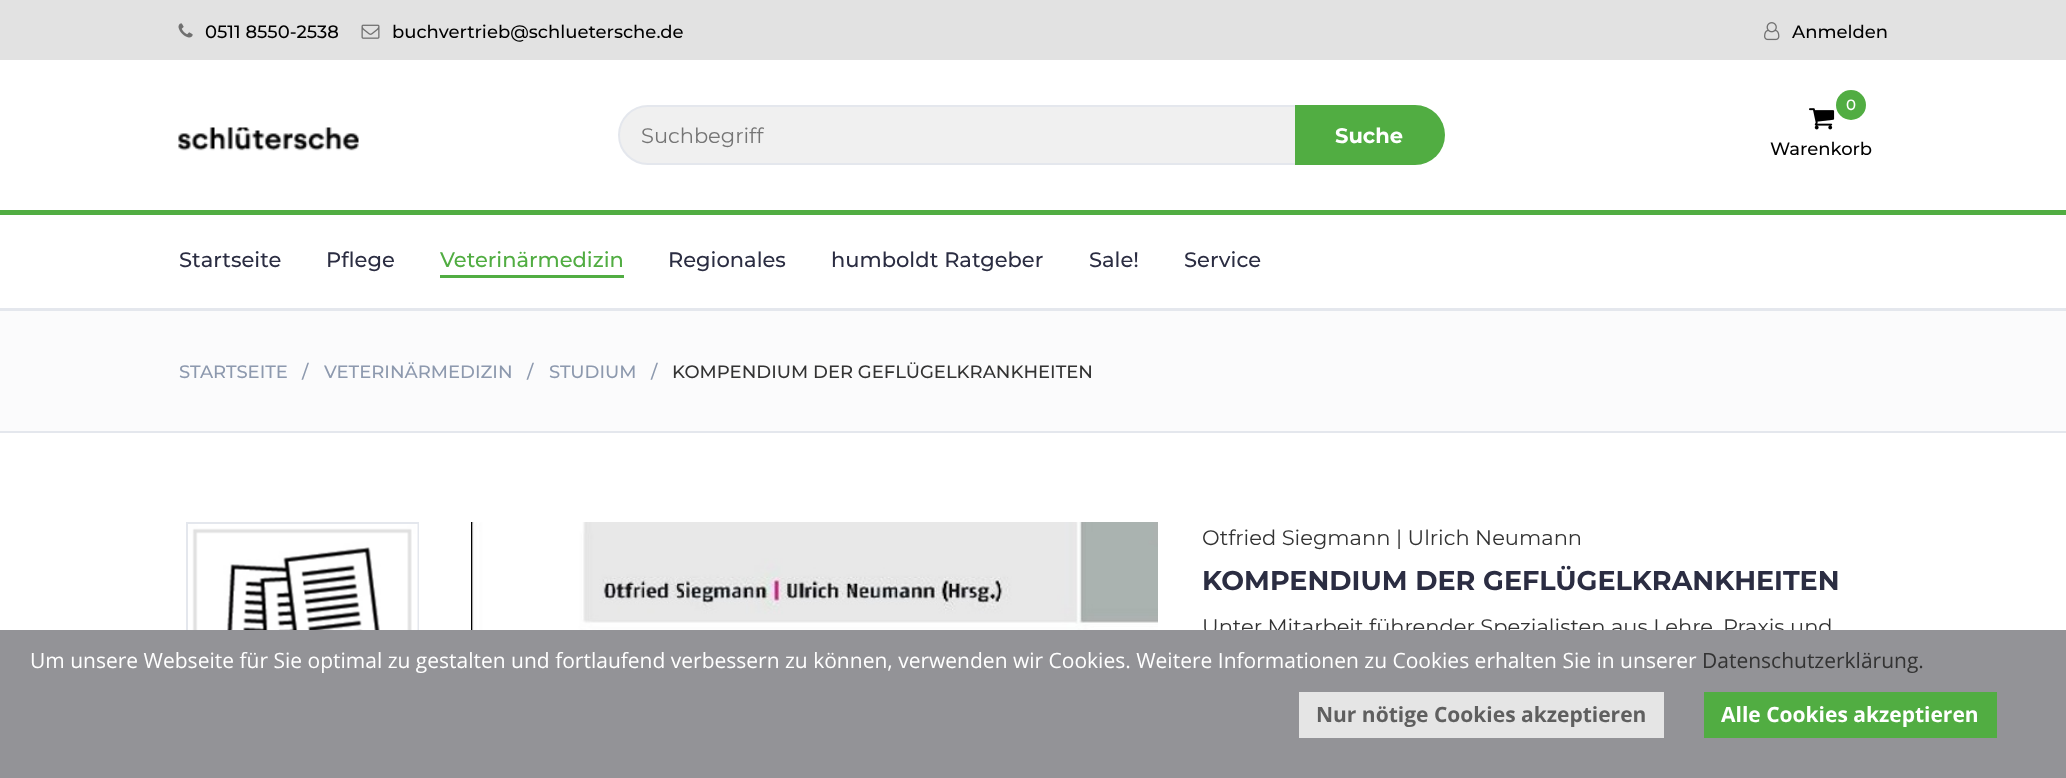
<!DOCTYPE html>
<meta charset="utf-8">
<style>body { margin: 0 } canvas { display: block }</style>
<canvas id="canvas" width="2066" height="778"></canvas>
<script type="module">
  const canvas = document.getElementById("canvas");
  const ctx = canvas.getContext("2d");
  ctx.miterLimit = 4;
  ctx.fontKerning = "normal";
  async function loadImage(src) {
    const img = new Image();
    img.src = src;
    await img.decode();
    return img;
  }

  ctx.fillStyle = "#ffffff";
  ctx.fillRect(0, 0, 2066, 778);
  ctx.fillStyle = "#e2e2e2";
  ctx.fillRect(0, 0, 2066, 60);
  ctx.drawImage(await loadImage("img1.png"), 178, 23, 15, 15);
  ctx.font = "100 18px Montserrat";
  ctx.fillStyle = "#000000";
  ctx.fillText("0511 8550-2538", 205, 38);
  ctx.drawImage(await loadImage("img2.png"), 361, 24, 19, 15);
  ctx.fillText("buchvertrieb@schluetersche.de", 392, 38);
  ctx.drawImage(await loadImage("img3.png"), 1764, 22, 16, 19);
  ctx.fillText("Anmelden", 1792, 38);
  ctx.drawImage(await loadImage("img4.png"), 178, 127, 181, 24);
  ctx.fillStyle = "#f0f0f0";
  ctx.beginPath();
  ctx.roundRect(619, 106, 681, 58, [29, 0, 0, 29]);
  ctx.fill();
  ctx.strokeStyle = "#e4e7ed";
  ctx.lineWidth = 2;
  ctx.stroke();
  ctx.font = "100 21px 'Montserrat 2'";
  ctx.fillStyle = "#757575";
  ctx.fillText("Suchbegriff", 641, 143);
  ctx.fillStyle = "#51ad42";
  ctx.beginPath();
  ctx.roundRect(1295, 105, 150, 60, [0, 30, 30, 0]);
  ctx.fill();
  ctx.font = "100 21px 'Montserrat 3'";
  ctx.fillStyle = "#ffffff";
  ctx.fillText("Suche", 1335, 143);
  ctx.fillStyle = "#51ad42";
  ctx.beginPath();
  ctx.arc(1851, 105, 15, 0, Math.PI * 2);
  ctx.fill();
  ctx.font = "100 15px Montserrat";
  ctx.fillStyle = "#ffffff";
  ctx.fillText("0", 1846, 110);
  ctx.drawImage(await loadImage("img5.png"), 1809, 108, 26, 22);
  ctx.font = "100 18px Montserrat";
  ctx.fillStyle = "#000000";
  ctx.fillText("Warenkorb", 1770, 155);
  ctx.fillStyle = "#51ad42";
  ctx.fillRect(0, 210, 2066, 5);
  ctx.fillStyle = "#e4e7ed";
  ctx.fillRect(0, 308, 2066, 3);
  ctx.font = "100 21px Montserrat";
  ctx.fillStyle = "#2b2d42";
  ctx.fillText("Startseite", 179, 267);
  ctx.fillText("Pflege", 326, 267);
  ctx.fillStyle = "#51ad42";
  ctx.fillText("Veterinärmedizin", 440, 267);
  ctx.fillRect(440, 275, 184, 3);
  ctx.fillStyle = "#2b2d42";
  ctx.fillText("Regionales", 668, 267);
  ctx.fillText("humboldt Ratgeber", 831, 267);
  ctx.fillText("Sale!", 1089, 267);
  ctx.fillText("Service", 1184, 267);
  ctx.fillStyle = "#fbfbfc";
  ctx.fillRect(0, 311, 2066, 120);
  ctx.fillStyle = "#e4e7ed";
  ctx.fillRect(0, 431, 2066, 2);
  ctx.font = "100 18px Montserrat";
  ctx.fillStyle = "#8d99ae";
  ctx.fillText("STARTSEITE", 179, 378);
  ctx.fillText("/", 302, 378);
  ctx.fillText("VETERINÄRMEDIZIN", 324, 378);
  ctx.fillText("/", 527, 378);
  ctx.fillText("STUDIUM", 549, 378);
  ctx.fillText("/", 651, 378);
  ctx.fillStyle = "#333333";
  ctx.fillText("KOMPENDIUM DER GEFLÜGELKRANKHEITEN", 672, 378);
  ctx.strokeRect(187, 523, 231, 231);
  ctx.drawImage(await loadImage("img6.png"), 188, 524, 230, 106);
  ctx.drawImage(await loadImage("img7.png"), 471, 522, 687, 108);
  ctx.font = "100 21px 'Montserrat 2'";
  ctx.fillText("Otfried Siegmann | Ulrich Neumann", 1202, 545);
  ctx.font = "100 27px 'Montserrat 3'";
  ctx.fillStyle = "#2b2d42";
  ctx.fillText("KOMPENDIUM DER GEFLÜGELKRANKHEITEN", 1202, 590);
  ctx.font = "100 21px 'Montserrat 2'";
  ctx.fillStyle = "#333333";
  ctx.fillText("Unter Mitarbeit führender Spezialisten aus Lehre, Praxis und", 1202, 634);
  ctx.fillStyle = "#939397";
  ctx.fillRect(0, 630, 2066, 148);
  ctx.font = "21px Open Sans";
  ctx.fillStyle = "#ffffff";
  ctx.fillText("Um unsere Webseite für Sie optimal zu gestalten und fortlaufend verbessern zu können, verwenden wir Cookies. Weitere Informationen zu Cookies erhalten Sie in unserer", 30, 668);
  ctx.fillStyle = "#333333";
  ctx.fillText("Datenschutzerklärung.", 1702, 668);
  ctx.fillStyle = "#e5e5e5";
  ctx.fillRect(1299, 692, 365, 46);
  ctx.font = "bold 21px Open Sans";
  ctx.fillStyle = "#5f5f5f";
  ctx.fillText("Nur nötige Cookies akzeptieren", 1316, 722);
  ctx.fillStyle = "#51ad42";
  ctx.fillRect(1704, 692, 293, 46);
  ctx.fillStyle = "#ffffff";
  ctx.fillText("Alle Cookies akzeptieren", 1721, 722);
</script>
